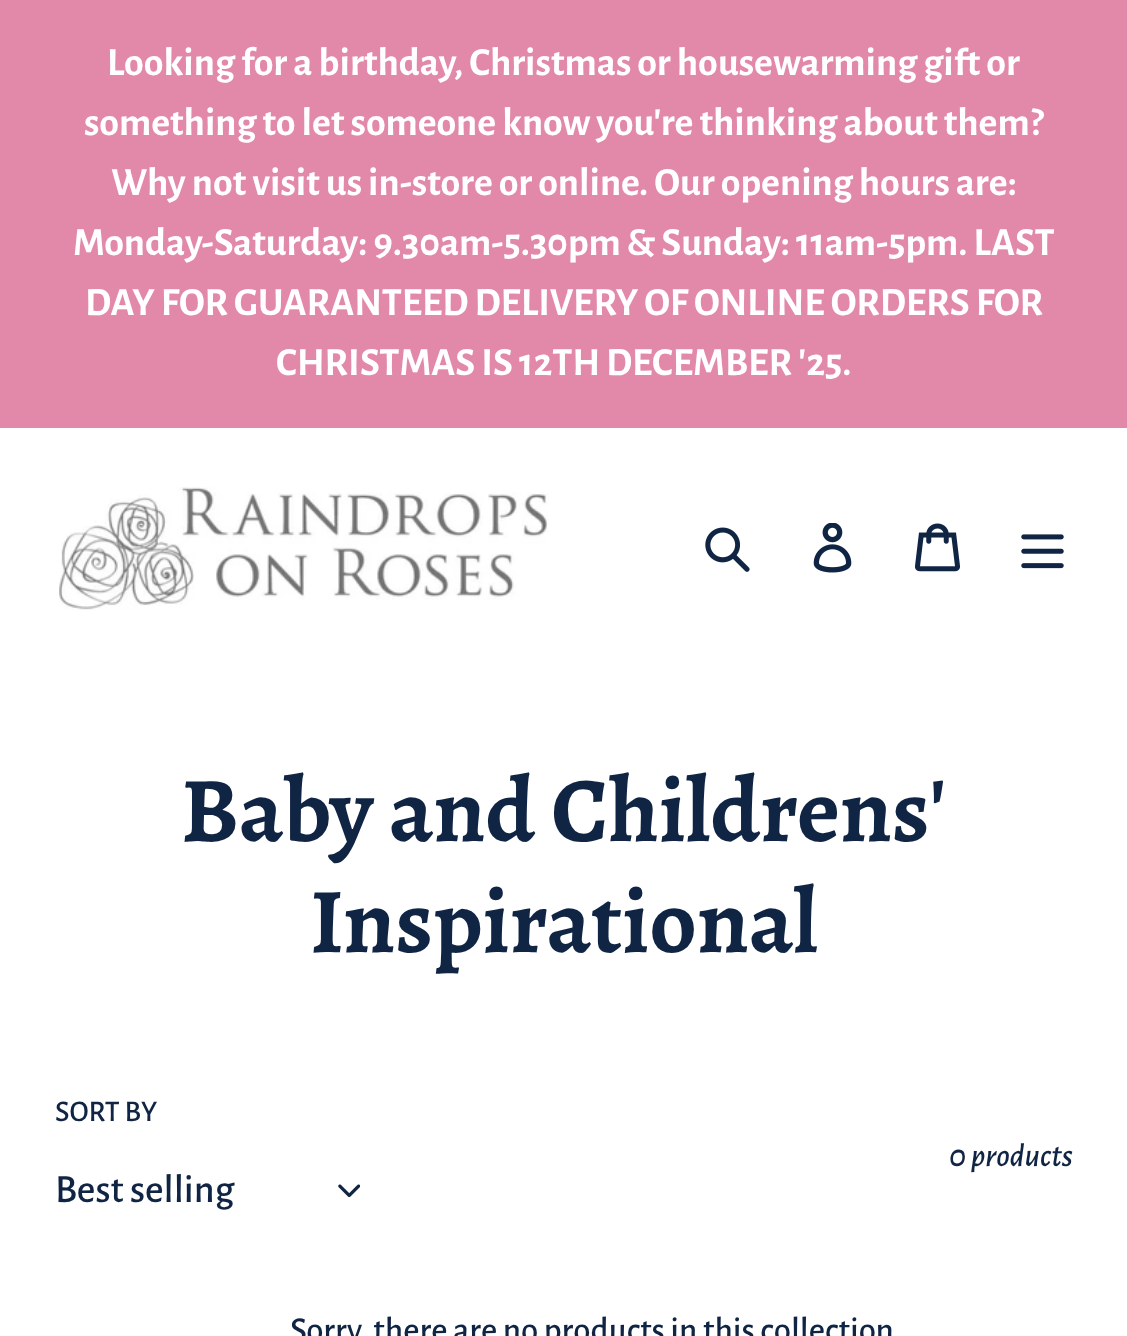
<!DOCTYPE html>
<meta charset="utf-8">
<style>body { margin: 0 } canvas { display: block }</style>
<canvas id="canvas" width="1127" height="1336"></canvas>
<script type="module">
  const canvas = document.getElementById("canvas");
  const ctx = canvas.getContext("2d");
  ctx.miterLimit = 4;
  ctx.fontKerning = "normal";
  async function loadImage(src) {
    const img = new Image();
    img.src = src;
    await img.decode();
    return img;
  }

  ctx.fillStyle = "#ffffff";
  ctx.fillRect(0, 0, 1127, 1336);
  ctx.fillStyle = "#e289a9";
  ctx.fillRect(0, 0, 1127, 428);
  ctx.font = "bold 40px Alegreya Sans";
  ctx.fillStyle = "#ffffff";
  ctx.fillText("Looking for a birthday, Christmas or housewarming gift or", 107, 75);
  ctx.fillText("something to let someone know you're thinking about them?", 84, 135);
  ctx.fillText("Why not visit us in-store or online. Our opening hours are:", 111, 195);
  ctx.fillText("Monday-Saturday: 9.30am-5.30pm & Sunday: 11am-5pm. LAST", 73, 255);
  ctx.fillText("DAY FOR GUARANTEED DELIVERY OF ONLINE ORDERS FOR", 85, 315);
  ctx.fillText("CHRISTMAS IS 12TH DECEMBER '25.", 276, 375);
  ctx.drawImage(await loadImage("img1.png"), 59, 487, 490, 123);
  ctx.drawImage(await loadImage("img2.png"), 705, 527, 45, 45);
  ctx.drawImage(await loadImage("img3.png"), 813, 523, 39, 50);
  ctx.drawImage(await loadImage("img4.png"), 915, 523, 45, 49);
  ctx.drawImage(await loadImage("img5.png"), 1021, 534, 43, 35);
  ctx.font = "bold 92.5px Alegreya";
  ctx.fillStyle = "#102443";
  ctx.fillText("Baby and Childrens'", 181, 841);
  ctx.fillText("Inspirational", 310, 952);
  ctx.font = "500 30px Alegreya Sans";
  ctx.fillText("SORT BY", 55, 1121);
  ctx.font = "500 40px Alegreya Sans";
  ctx.fillText("Best selling", 55, 1202);
  ctx.drawImage(await loadImage("img6.png"), 338, 1184, 22, 14);
  ctx.font = "italic 500 32.5px Alegreya Sans";
  ctx.fillText("0 products", 949, 1166);
  ctx.font = "500 35px Alegreya Sans";
  ctx.fillText("Sorry, there are no products in this collection", 290, 1341);
</script>
